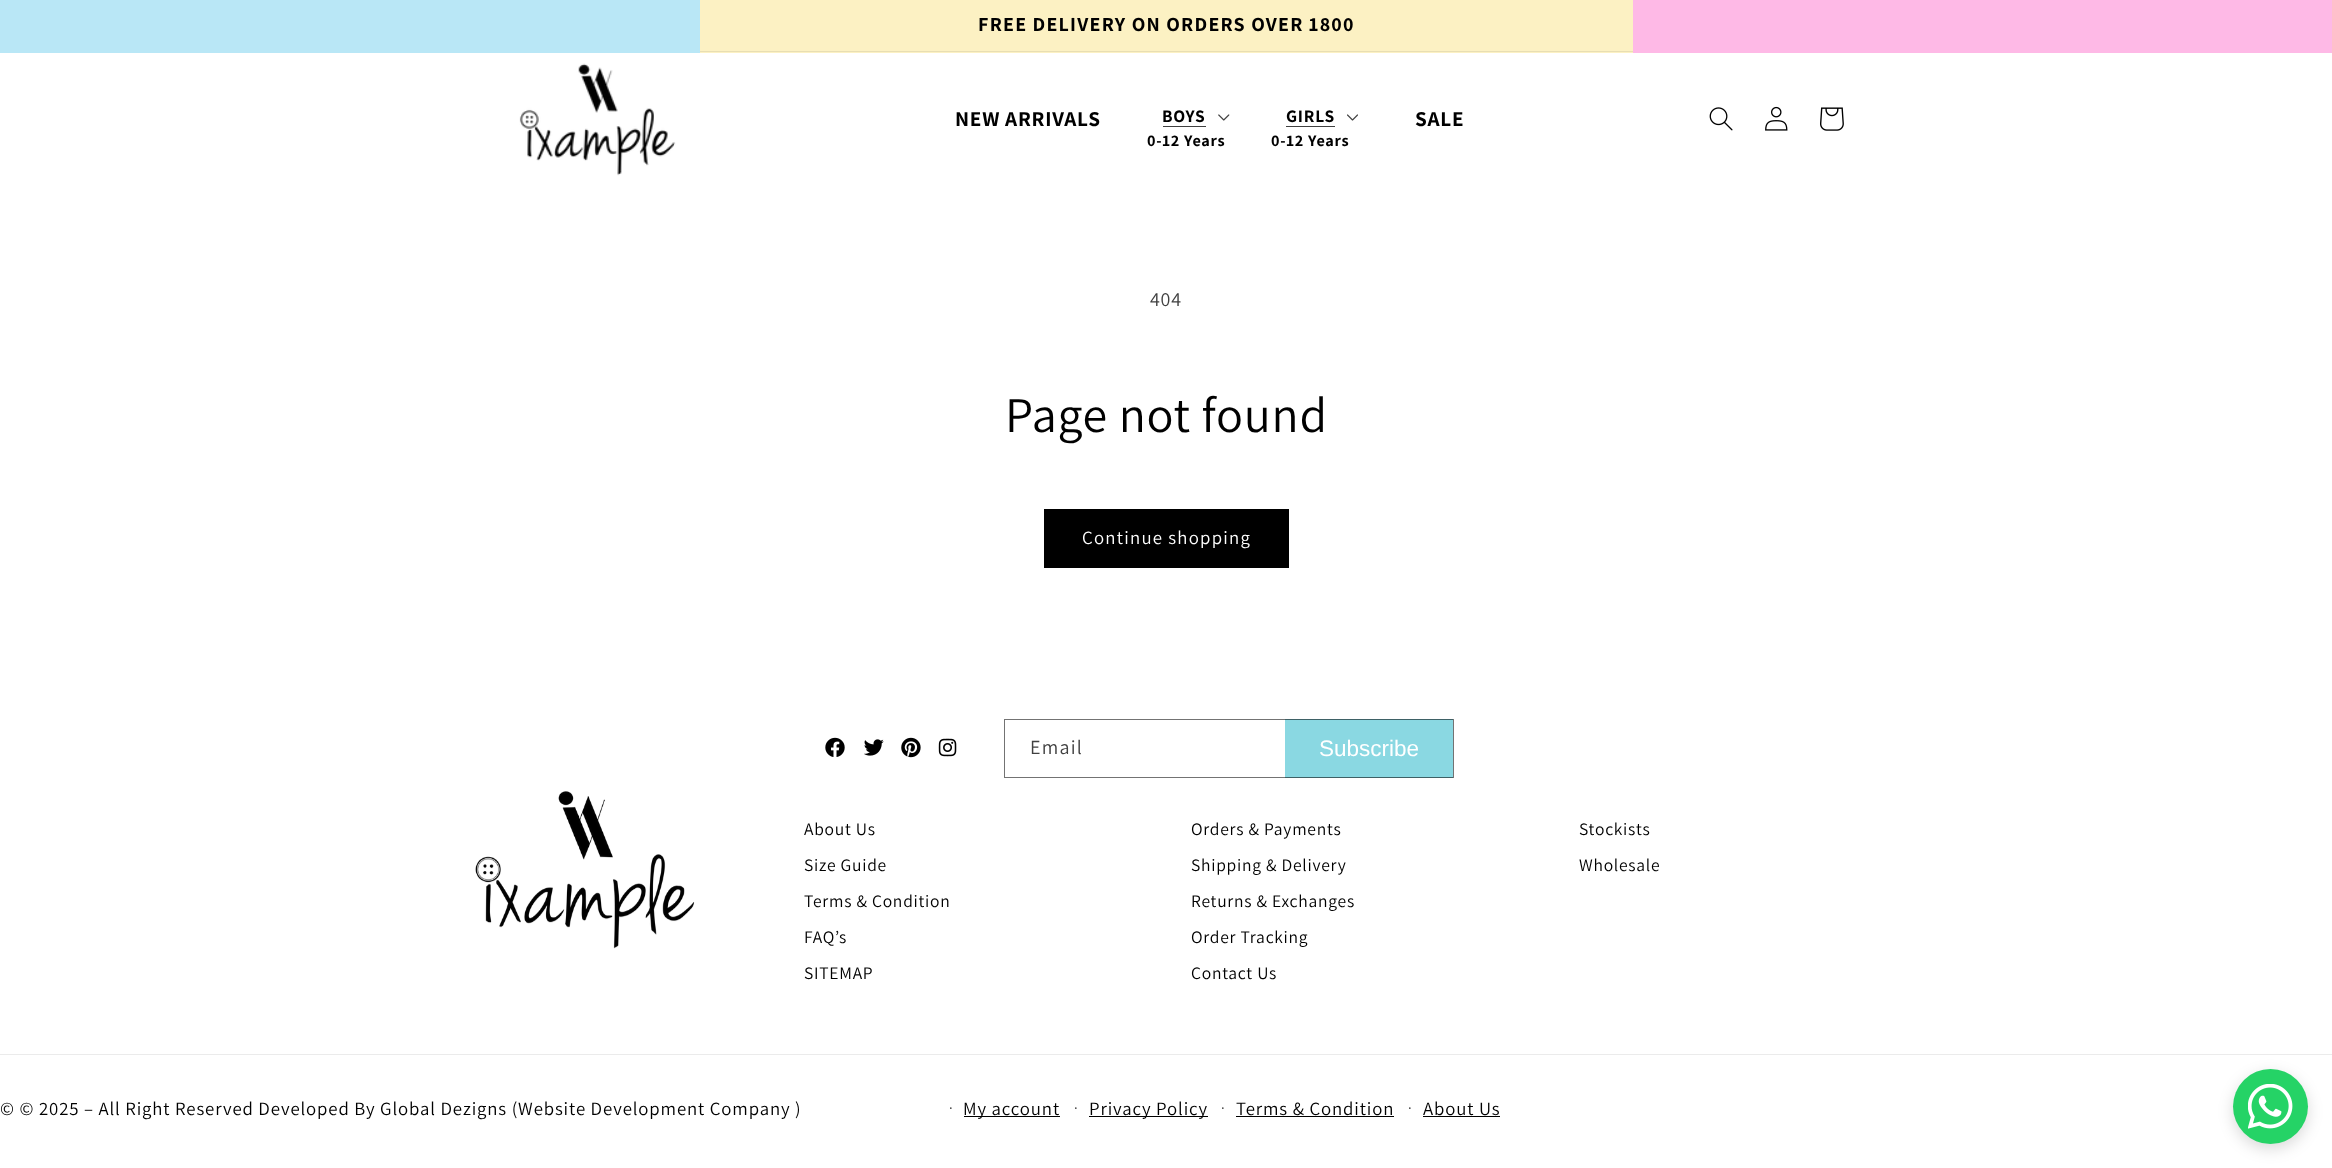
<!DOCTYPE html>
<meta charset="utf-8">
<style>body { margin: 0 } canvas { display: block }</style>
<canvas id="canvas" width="2332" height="1168"></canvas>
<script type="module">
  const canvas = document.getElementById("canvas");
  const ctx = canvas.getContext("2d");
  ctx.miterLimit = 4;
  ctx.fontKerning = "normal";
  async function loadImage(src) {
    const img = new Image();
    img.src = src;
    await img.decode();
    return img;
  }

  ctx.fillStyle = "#ffffff";
  ctx.fillRect(0, 0, 2332, 1168);
  ctx.fillStyle = "#fcf1c3";
  ctx.fillRect(700, 0, 933, 53);
  ctx.fillStyle = "#e8deb3";
  ctx.fillRect(700, 51, 933, 1);
  ctx.fillStyle = "#b9e7f6";
  ctx.fillRect(0, 0, 700, 53);
  ctx.letterSpacing = "1.25px";
  ctx.font = "bold 20px Assistant";
  ctx.fillStyle = "#000000";
  ctx.fillText("FREE DELIVERY ON ORDERS OVER 1800", 978, 31);
  ctx.fillStyle = "#feb9e6";
  ctx.fillRect(1633, 0, 699, 53);
  ctx.drawImage(await loadImage("img1.png"), 519, 63, 157, 113);
  ctx.letterSpacing = "0.75px";
  ctx.font = "bold 21.25px Assistant";
  ctx.fillStyle = "#000000";
  ctx.fillText("NEW ARRIVALS", 955, 126);
  ctx.font = "bold 17.5px Assistant";
  ctx.fillText("BOYS", 1162, 122);
  ctx.fillStyle = "#404040";
  ctx.fillRect(1163, 126, 43, 1);
  ctx.drawImage(await loadImage("img2.png"), 1218, 114, 12, 7);
  ctx.font = "bold 16.25px Assistant";
  ctx.fillStyle = "#000000";
  ctx.fillText("0-12 Years", 1147, 146);
  ctx.font = "bold 17.5px Assistant";
  ctx.fillText("GIRLS", 1286, 122);
  ctx.fillStyle = "#404040";
  ctx.fillRect(1286, 126, 49, 1);
  ctx.drawImage(await loadImage("img3.png"), 1347, 114, 11, 7);
  ctx.font = "bold 16.25px Assistant";
  ctx.fillStyle = "#000000";
  ctx.fillText("0-12 Years", 1271, 146);
  ctx.font = "bold 21.25px Assistant";
  ctx.fillText("SALE", 1415, 126);
  ctx.drawImage(await loadImage("img4.png"), 1709, 107, 24, 24);
  ctx.drawImage(await loadImage("img5.png"), 1765, 106, 23, 25);
  ctx.drawImage(await loadImage("img6.png"), 1820, 107, 24, 24);
  ctx.font = "20px Assistant";
  ctx.fillStyle = "#404040";
  ctx.fillText("404", 1150, 306);
  ctx.font = "50px Assistant";
  ctx.fillStyle = "#000000";
  ctx.fillText("Page not found", 1005, 432);
  ctx.fillRect(1044, 509, 245, 59);
  ctx.letterSpacing = "1.25px";
  ctx.font = "18.75px Assistant";
  ctx.fillStyle = "#ffffff";
  ctx.fillText("Continue shopping", 1082, 544);
  ctx.drawImage(await loadImage("img7.png"), 825, 737, 20, 20);
  ctx.drawImage(await loadImage("img8.png"), 864, 739, 20, 17);
  ctx.drawImage(await loadImage("img9.png"), 901, 737, 20, 21);
  ctx.drawImage(await loadImage("img10.png"), 938, 738, 19, 19);
  ctx.fillStyle = "#8ad8e2";
  ctx.fillRect(1285, 719, 168, 59);
  ctx.strokeStyle = "rgba(0, 0, 0, 0.55)";
  ctx.strokeRect(1004.5, 719.5, 449, 58);
  ctx.font = "20px Assistant";
  ctx.fillStyle = "#404040";
  ctx.fillText("Email", 1030, 754);
  ctx.letterSpacing = "0px";
  ctx.font = "22.5px Liberation Sans";
  ctx.fillStyle = "#ffffff";
  ctx.fillText("Subscribe", 1319, 756);
  ctx.drawImage(await loadImage("img11.png"), 475, 791, 220, 158);
  ctx.letterSpacing = "0.75px";
  ctx.font = "17.5px Assistant";
  ctx.fillStyle = "#000000";
  ctx.fillText("About Us", 804, 835);
  ctx.fillText("Size Guide", 804, 871);
  ctx.fillText("Terms & Condition", 804, 907);
  ctx.fillText("FAQ’s", 804, 943);
  ctx.fillText("SITEMAP", 804, 979);
  ctx.fillText("Orders & Payments", 1191, 835);
  ctx.fillText("Shipping & Delivery", 1191, 871);
  ctx.fillText("Returns & Exchanges", 1191, 907);
  ctx.fillText("Order Tracking", 1191, 943);
  ctx.fillText("Contact Us", 1191, 979);
  ctx.fillText("Stockists", 1579, 835);
  ctx.fillText("Wholesale", 1579, 871);
  ctx.fillStyle = "#ebebeb";
  ctx.fillRect(0, 1054, 2332, 1);
  ctx.letterSpacing = "0.88px";
  ctx.font = "18.75px Assistant";
  ctx.fillStyle = "#000000";
  ctx.fillText("© © 2025 – All Right Reserved Developed By Global Dezigns (Website Development Company )", 0, 1115);
  ctx.font = "15px Assistant";
  ctx.fillStyle = "#404040";
  ctx.fillText("·", 949, 1113);
  ctx.fillStyle = "#000000";
  ctx.fillRect(964, 1116, 96, 1);
  ctx.font = "18.75px Assistant";
  ctx.fillText("My account", 963, 1115);
  ctx.font = "15px Assistant";
  ctx.fillStyle = "#404040";
  ctx.fillText("·", 1074, 1113);
  ctx.fillStyle = "#000000";
  ctx.fillRect(1089, 1116, 119, 1);
  ctx.font = "18.75px Assistant";
  ctx.fillText("Privacy Policy", 1089, 1115);
  ctx.font = "15px Assistant";
  ctx.fillStyle = "#404040";
  ctx.fillText("·", 1221, 1113);
  ctx.font = "18.75px Assistant";
  ctx.fillStyle = "#000000";
  ctx.fillText("Terms & Condition", 1236, 1115);
  ctx.fillRect(1236, 1116, 158, 1);
  ctx.font = "15px Assistant";
  ctx.fillStyle = "#404040";
  ctx.fillText("·", 1408, 1113);
  ctx.font = "18.75px Assistant";
  ctx.fillStyle = "#000000";
  ctx.fillText("About Us", 1423, 1115);
  ctx.fillRect(1423, 1116, 77, 1);
  ctx.fillStyle = "rgba(0, 0, 0, 0.15)";
  ctx.filter = "blur(7.5px)";
  ctx.beginPath();
  ctx.roundRect(2233, 1074, 75, 75, 37.5);
  ctx.fill();
  ctx.filter = "none";
  ctx.fillStyle = "#25d366";
  ctx.beginPath();
  ctx.arc(2270.5, 1106.5, 37.5, 0, Math.PI * 2);
  ctx.fill();
  ctx.drawImage(await loadImage("img12.png"), 2248, 1084, 45, 45);
</script>
